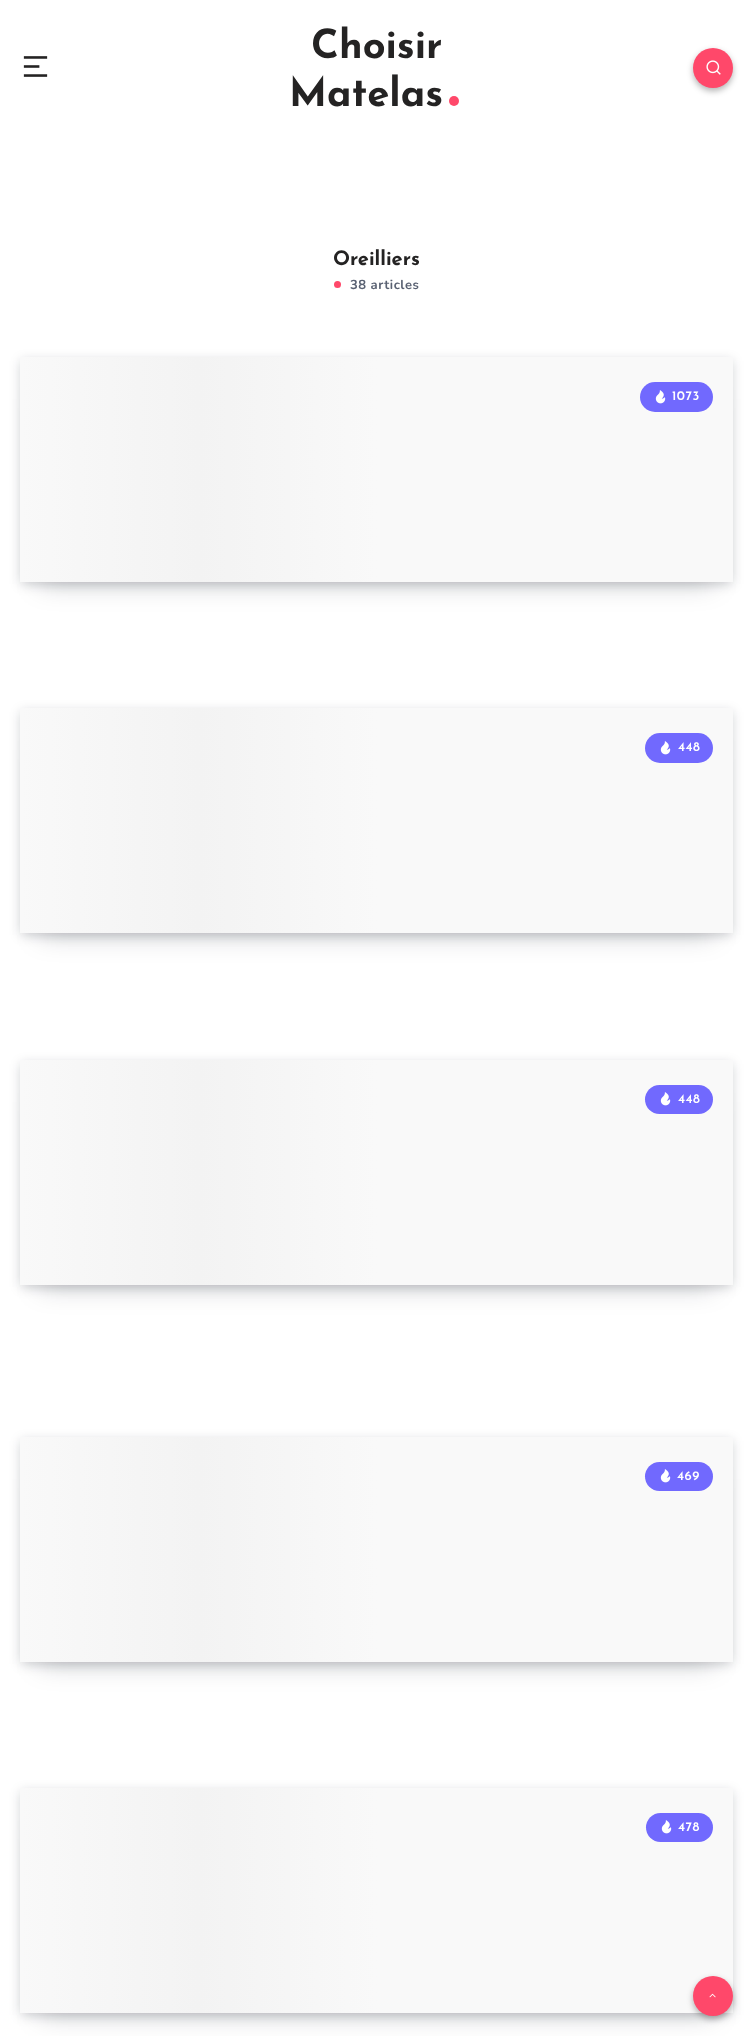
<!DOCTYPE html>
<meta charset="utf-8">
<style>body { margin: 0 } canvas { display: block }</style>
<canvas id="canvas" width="753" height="2036"></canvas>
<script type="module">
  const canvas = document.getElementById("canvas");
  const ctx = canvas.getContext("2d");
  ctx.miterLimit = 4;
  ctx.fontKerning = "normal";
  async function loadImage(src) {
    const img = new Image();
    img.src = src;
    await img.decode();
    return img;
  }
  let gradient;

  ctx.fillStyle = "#ffffff";
  ctx.fillRect(0, 0, 753, 2036);
  ctx.drawImage(await loadImage("img1.png"), 23, 56, 25, 21);
  ctx.font = "bold 40px Josefin Sans";
  ctx.fillStyle = "#242323";
  ctx.fillText("Choisir", 311, 58);
  ctx.fillText("Matelas", 289, 106);
  ctx.fillStyle = "#ff486a";
  ctx.beginPath();
  ctx.arc(454, 101, 5, 0, Math.PI * 2);
  ctx.fill();
  ctx.fillStyle = "rgba(0, 0, 0, 0.3)";
  ctx.filter = "blur(3px)";
  ctx.beginPath();
  ctx.roundRect(693, 51, 40, 40, 20);
  ctx.fill();
  ctx.filter = "none";
  ctx.fillStyle = "#ff486a";
  ctx.beginPath();
  ctx.arc(713, 68, 20, 0, Math.PI * 2);
  ctx.fill();
  ctx.drawImage(await loadImage("img2.png"), 706, 60, 15, 15);
  ctx.font = "bold 20px Josefin Sans";
  ctx.fillStyle = "#242323";
  ctx.fillText("Oreilliers", 333, 265);
  ctx.fillStyle = "#ff486a";
  ctx.beginPath();
  ctx.arc(337.5, 284.5, 3.5, 0, Math.PI * 2);
  ctx.fill();
  ctx.letterSpacing = "0.5px";
  ctx.font = "bold 13px Nunito";
  ctx.fillStyle = "#596172";
  ctx.fillText("38 articles", 350, 289);
  ctx.fillStyle = "rgba(7, 10, 25, 0.2)";
  ctx.filter = "blur(13.5px)";
  ctx.beginPath();
  ctx.rect(40, 399, 673, 185);
  ctx.fill();
  ctx.filter = "none";
  ctx.filter = "blur(6px)";
  ctx.beginPath();
  ctx.rect(21, 361, 711, 223);
  ctx.fill();
  ctx.filter = "none";
  gradient = ctx.createLinearGradient(20, 470, 377, 470);
  gradient.addColorStop(0, "#f9f9f9");
  gradient.addColorStop(0.5, "#f3f3f3");
  gradient.addColorStop(1, "#f9f9f9");
  ctx.fillStyle = gradient;
  ctx.fillRect(20, 357, 357, 225);
  ctx.fillStyle = "#f9f9f9";
  ctx.fillRect(377, 357, 356, 225);
  ctx.fillStyle = "#7169fe";
  ctx.beginPath();
  ctx.roundRect(640, 382, 73, 30, 15);
  ctx.fill();
  ctx.drawImage(await loadImage("img3.png"), 655, 390, 11, 14);
  ctx.font = "600 13px Josefin Sans";
  ctx.fillStyle = "#ffffff";
  ctx.fillText("1073", 672, 400);
  ctx.fillStyle = "rgba(7, 10, 25, 0.2)";
  ctx.filter = "blur(13.5px)";
  ctx.beginPath();
  ctx.rect(40, 750, 673, 185);
  ctx.fill();
  ctx.filter = "none";
  ctx.filter = "blur(6px)";
  ctx.beginPath();
  ctx.rect(21, 712, 711, 223);
  ctx.fill();
  ctx.filter = "none";
  gradient = ctx.createLinearGradient(20, 821, 377, 821);
  gradient.addColorStop(0, "#f9f9f9");
  gradient.addColorStop(0.5, "#f3f3f3");
  gradient.addColorStop(1, "#f9f9f9");
  ctx.fillStyle = gradient;
  ctx.fillRect(20, 708, 357, 225);
  ctx.fillStyle = "#f9f9f9";
  ctx.fillRect(377, 708, 356, 225);
  ctx.fillStyle = "#7169fe";
  ctx.beginPath();
  ctx.roundRect(645, 733, 68, 30, 15);
  ctx.fill();
  ctx.drawImage(await loadImage("img3.png"), 660, 741, 11, 14);
  ctx.fillStyle = "#ffffff";
  ctx.fillText("448", 678, 751);
  ctx.fillStyle = "rgba(7, 10, 25, 0.2)";
  ctx.filter = "blur(13.5px)";
  ctx.beginPath();
  ctx.rect(40, 1102, 673, 185);
  ctx.fill();
  ctx.filter = "none";
  ctx.filter = "blur(6px)";
  ctx.beginPath();
  ctx.rect(21, 1064, 711, 223);
  ctx.fill();
  ctx.filter = "none";
  gradient = ctx.createLinearGradient(20, 1173, 377, 1173);
  gradient.addColorStop(0, "#f9f9f9");
  gradient.addColorStop(0.5, "#f3f3f3");
  gradient.addColorStop(1, "#f9f9f9");
  ctx.fillStyle = gradient;
  ctx.fillRect(20, 1060, 357, 225);
  ctx.fillStyle = "#f9f9f9";
  ctx.fillRect(377, 1060, 356, 225);
  ctx.fillStyle = "#7169fe";
  ctx.beginPath();
  ctx.roundRect(645, 1085, 68, 29, 14.5);
  ctx.fill();
  ctx.drawImage(await loadImage("img3.png"), 660, 1092, 11, 14);
  ctx.fillStyle = "#ffffff";
  ctx.fillText("448", 678, 1103);
  ctx.fillStyle = "rgba(7, 10, 25, 0.2)";
  ctx.filter = "blur(13.5px)";
  ctx.beginPath();
  ctx.rect(40, 1479, 673, 185);
  ctx.fill();
  ctx.filter = "none";
  ctx.filter = "blur(6px)";
  ctx.beginPath();
  ctx.rect(21, 1441, 711, 223);
  ctx.fill();
  ctx.filter = "none";
  gradient = ctx.createLinearGradient(20, 1550, 377, 1550);
  gradient.addColorStop(0, "#f9f9f9");
  gradient.addColorStop(0.5, "#f3f3f3");
  gradient.addColorStop(1, "#f9f9f9");
  ctx.fillStyle = gradient;
  ctx.fillRect(20, 1437, 357, 225);
  ctx.fillStyle = "#f9f9f9";
  ctx.fillRect(377, 1437, 356, 225);
  ctx.fillStyle = "#7169fe";
  ctx.beginPath();
  ctx.roundRect(645, 1462, 68, 29, 14.5);
  ctx.fill();
  ctx.drawImage(await loadImage("img3.png"), 660, 1469, 11, 14);
  ctx.fillStyle = "#ffffff";
  ctx.fillText("469", 677, 1480);
  ctx.fillStyle = "rgba(7, 10, 25, 0.2)";
  ctx.filter = "blur(13.5px)";
  ctx.beginPath();
  ctx.rect(40, 1830, 673, 185);
  ctx.fill();
  ctx.filter = "none";
  ctx.filter = "blur(6px)";
  ctx.beginPath();
  ctx.rect(21, 1792, 711, 223);
  ctx.fill();
  ctx.filter = "none";
  gradient = ctx.createLinearGradient(20, 1901, 377, 1901);
  gradient.addColorStop(0, "#f9f9f9");
  gradient.addColorStop(0.5, "#f3f3f3");
  gradient.addColorStop(1, "#f9f9f9");
  ctx.fillStyle = gradient;
  ctx.fillRect(20, 1788, 357, 225);
  ctx.fillStyle = "#f9f9f9";
  ctx.fillRect(377, 1788, 356, 225);
  ctx.fillStyle = "#7169fe";
  ctx.beginPath();
  ctx.roundRect(646, 1813, 67, 29, 14.5);
  ctx.fill();
  ctx.drawImage(await loadImage("img3.png"), 661, 1820, 11, 14);
  ctx.fillStyle = "#ffffff";
  ctx.fillText("478", 678, 1831);
  ctx.fillStyle = "rgba(0, 0, 0, 0.3)";
  ctx.filter = "blur(3px)";
  ctx.beginPath();
  ctx.roundRect(693, 1979, 40, 40, 20);
  ctx.fill();
  ctx.filter = "none";
  ctx.fillStyle = "#ff486a";
  ctx.beginPath();
  ctx.arc(713, 1996, 20, 0, Math.PI * 2);
  ctx.fill();
  ctx.drawImage(await loadImage("img4.png"), 709, 1993, 7, 5);
</script>
